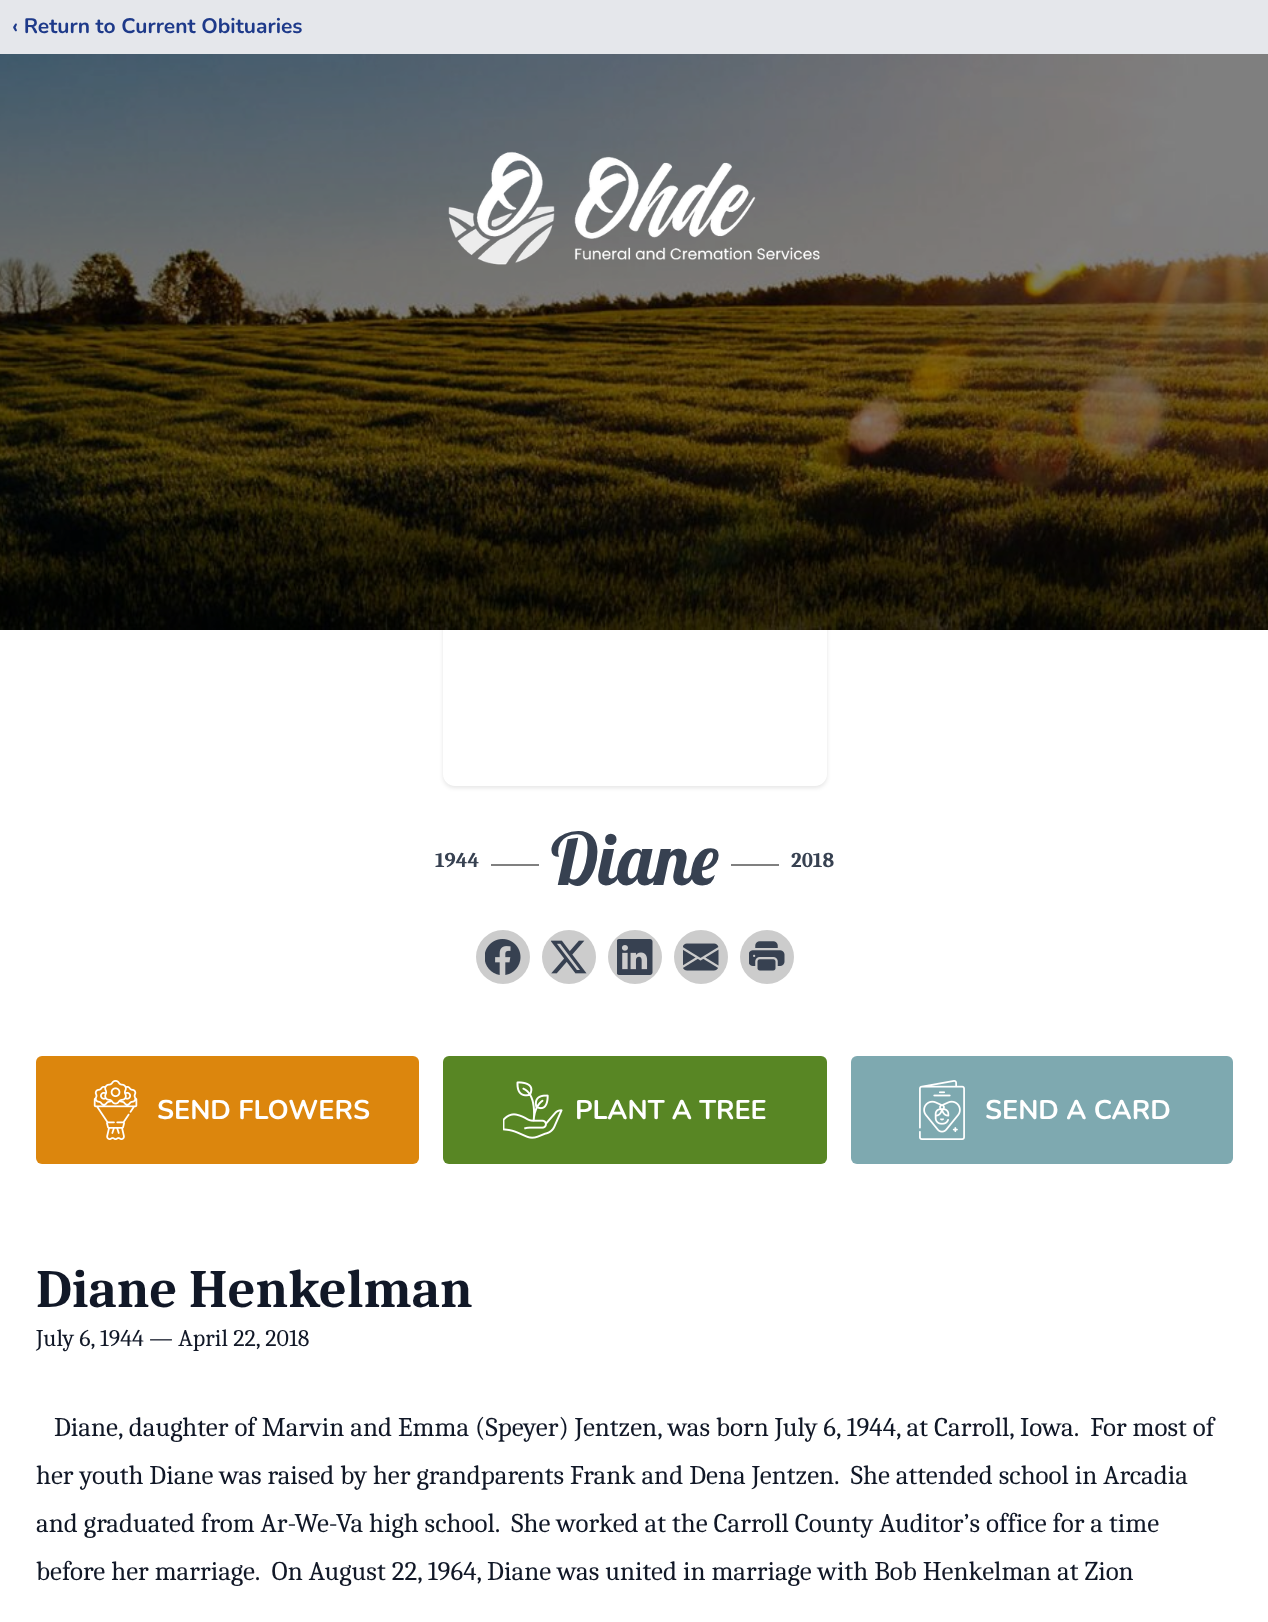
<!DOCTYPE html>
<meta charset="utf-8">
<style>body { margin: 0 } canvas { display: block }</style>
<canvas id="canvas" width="1268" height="1622"></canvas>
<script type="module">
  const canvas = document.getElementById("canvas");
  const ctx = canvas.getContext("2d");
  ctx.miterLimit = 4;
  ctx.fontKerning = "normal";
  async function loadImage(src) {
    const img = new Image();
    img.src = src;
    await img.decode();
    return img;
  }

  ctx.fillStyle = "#ffffff";
  ctx.fillRect(0, 0, 1268, 1622);
  ctx.fillStyle = "#e5e7eb";
  ctx.fillRect(0, 0, 1268, 54);
  ctx.font = "bold 21px Nunito";
  ctx.fillStyle = "#1e3a8a";
  ctx.fillText("‹ Return to Current Obituaries", 12, 33);
  ctx.drawImage(await loadImage("img1.png"), 0, 54, 1268, 576);
  ctx.drawImage(await loadImage("img2.png"), 448, 151, 372, 114);
  ctx.save();
  ctx.beginPath();
  ctx.moveTo(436, 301);
  ctx.lineTo(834, 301);
  ctx.lineTo(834, 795);
  ctx.lineTo(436, 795);
  ctx.closePath();
  ctx.moveTo(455, 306);
  ctx.lineTo(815, 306);
  ctx.bezierCurveTo(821.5, 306, 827, 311.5, 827, 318);
  ctx.lineTo(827, 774);
  ctx.bezierCurveTo(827, 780.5, 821.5, 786, 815, 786);
  ctx.lineTo(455, 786);
  ctx.bezierCurveTo(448.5, 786, 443, 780.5, 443, 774);
  ctx.lineTo(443, 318);
  ctx.bezierCurveTo(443, 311.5, 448.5, 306, 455, 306);
  ctx.closePath();
  ctx.clip("evenodd");
  ctx.fillStyle = "rgba(0, 0, 0, 0.1)";
  ctx.filter = "blur(2px)";
  ctx.beginPath();
  ctx.roundRect(443, 308, 384, 480, 12);
  ctx.fill();
  ctx.filter = "none";
  ctx.restore();
  ctx.font = "bold 21px Caladea";
  ctx.fillStyle = "#374151";
  ctx.fillText("1944", 435, 867);
  ctx.fillStyle = "#808080";
  ctx.fillRect(491, 864, 48, 2);
  ctx.font = "72px Lobster";
  ctx.fillStyle = "#374151";
  ctx.fillText("Diane", 551, 885);
  ctx.fillStyle = "#808080";
  ctx.fillRect(731, 864, 48, 2);
  ctx.font = "bold 21px Caladea";
  ctx.fillStyle = "#374151";
  ctx.fillText("2018", 791, 867);
  ctx.fillStyle = "#cccccc";
  ctx.beginPath();
  ctx.arc(503, 957, 27, 0, Math.PI * 2);
  ctx.fill();
  ctx.drawImage(await loadImage("img3.png"), 485, 939, 36, 36);
  ctx.beginPath();
  ctx.arc(569, 957, 27, 0, Math.PI * 2);
  ctx.fill();
  ctx.drawImage(await loadImage("img4.png"), 551, 940, 36, 34);
  ctx.beginPath();
  ctx.arc(635, 957, 27, 0, Math.PI * 2);
  ctx.fill();
  ctx.drawImage(await loadImage("img5.png"), 617, 939, 36, 36);
  ctx.beginPath();
  ctx.arc(701, 957, 27, 0, Math.PI * 2);
  ctx.fill();
  ctx.drawImage(await loadImage("img6.png"), 683, 943, 36, 28);
  ctx.beginPath();
  ctx.arc(767, 957, 27, 0, Math.PI * 2);
  ctx.fill();
  ctx.drawImage(await loadImage("img7.png"), 749, 941, 36, 30);
  ctx.fillStyle = "#dc860d";
  ctx.beginPath();
  ctx.roundRect(36, 1056, 383, 108, 6);
  ctx.fill();
  ctx.drawImage(await loadImage("img8.png"), 93, 1080, 45, 60);
  ctx.font = "bold 27px Nunito";
  ctx.fillStyle = "#ffffff";
  ctx.fillText("SEND FLOWERS", 157, 1119);
  ctx.fillStyle = "#588624";
  ctx.beginPath();
  ctx.roundRect(443, 1056, 384, 108, 6);
  ctx.fill();
  ctx.drawImage(await loadImage("img9.png"), 503, 1081, 60, 58);
  ctx.fillStyle = "#ffffff";
  ctx.fillText("PLANT A TREE", 575, 1119);
  ctx.fillStyle = "#7ea9b0";
  ctx.beginPath();
  ctx.roundRect(851, 1056, 382, 108, 6);
  ctx.fill();
  ctx.drawImage(await loadImage("img10.png"), 919, 1080, 46, 60);
  ctx.fillStyle = "#ffffff";
  ctx.fillText("SEND A CARD", 985, 1119);
  ctx.font = "bold 54px Caladea";
  ctx.fillStyle = "#111827";
  ctx.fillText("Diane Henkelman", 36, 1307);
  ctx.font = "24px Caladea";
  ctx.fillText("July 6, 1944 — April 22, 2018", 36, 1346);
  ctx.font = "27px Caladea";
  ctx.fillText("Diane, daughter of Marvin and Emma (Speyer) Jentzen, was born July 6, 1944, at Carroll, Iowa.  For most of", 54, 1436);
  ctx.fillText("her youth Diane was raised by her grandparents Frank and Dena Jentzen.  She attended school in Arcadia", 36, 1484);
  ctx.fillText("and graduated from Ar-We-Va high school.  She worked at the Carroll County Auditor’s office for a time", 36, 1532);
  ctx.fillText("before her marriage.  On August 22, 1964, Diane was united in marriage with Bob Henkelman at Zion", 36, 1580);
</script>
